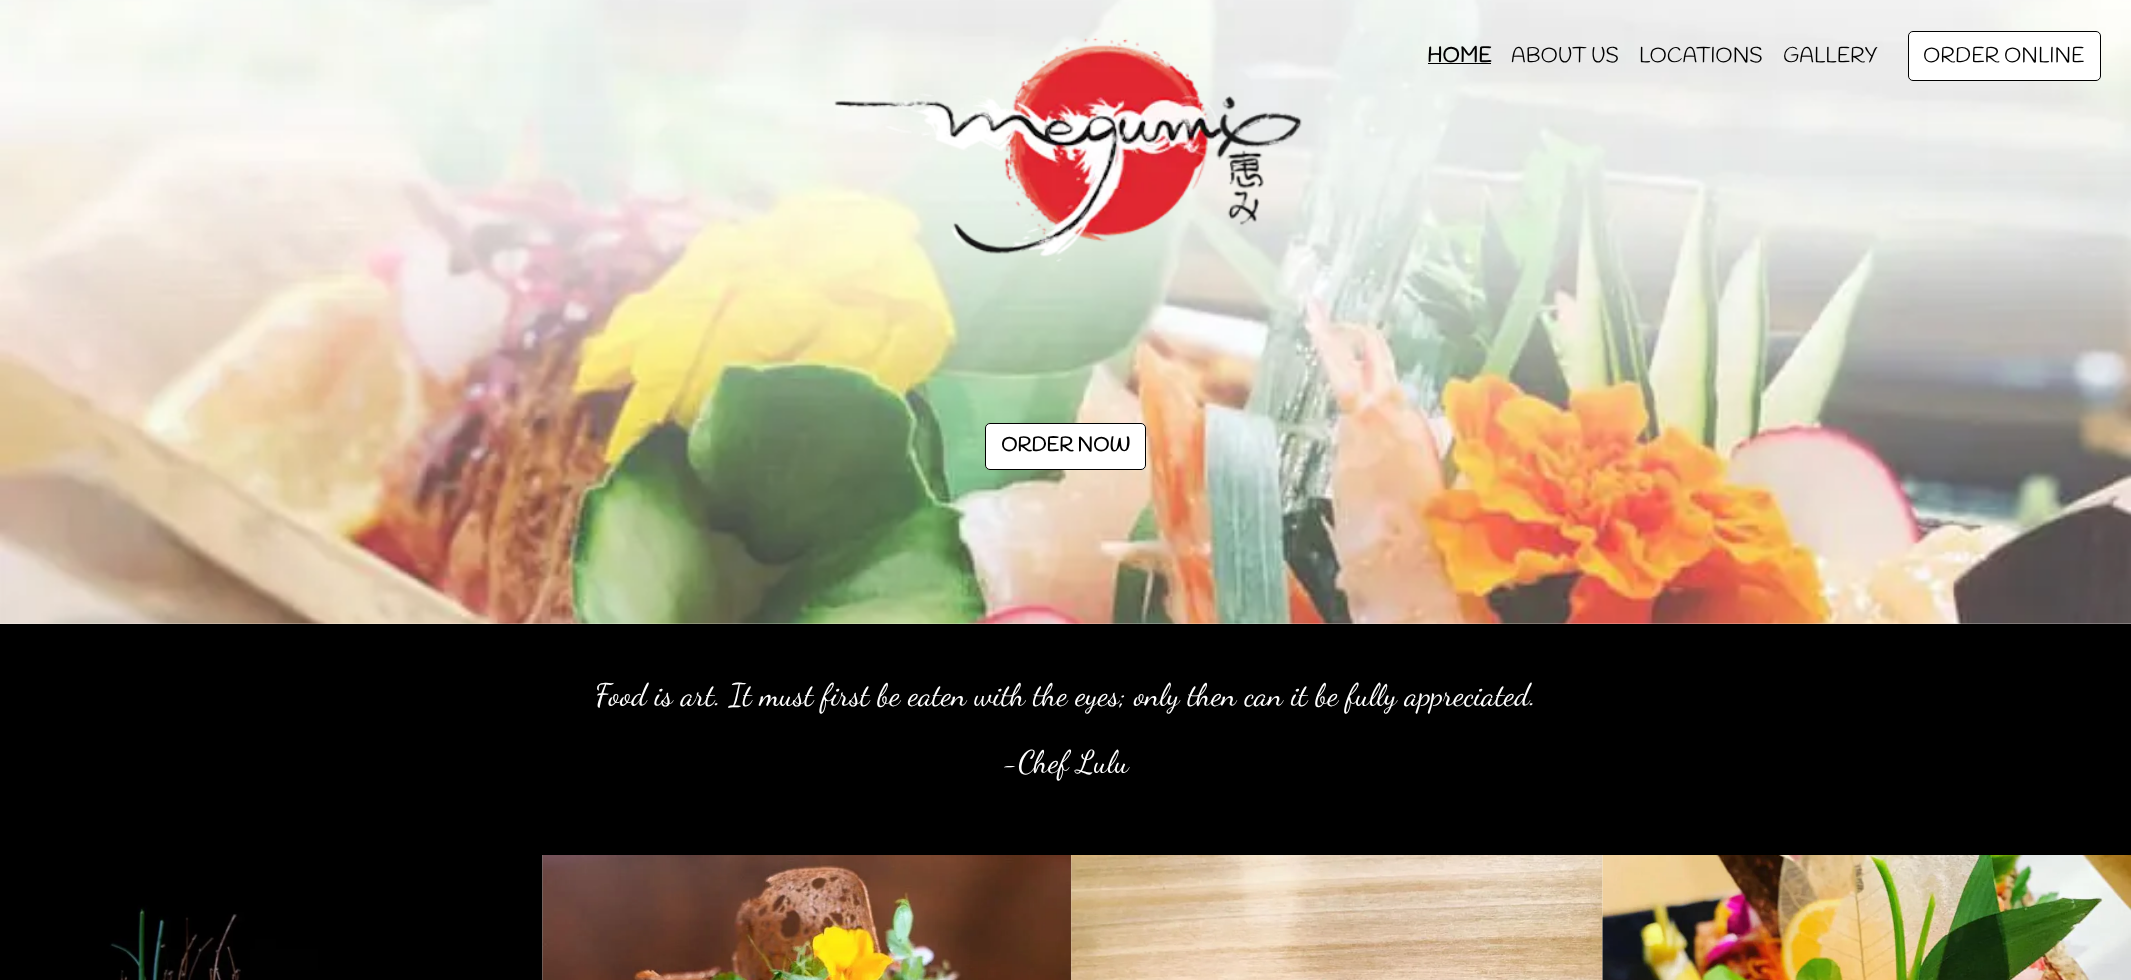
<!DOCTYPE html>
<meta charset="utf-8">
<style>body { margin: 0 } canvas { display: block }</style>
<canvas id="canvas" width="2131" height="980"></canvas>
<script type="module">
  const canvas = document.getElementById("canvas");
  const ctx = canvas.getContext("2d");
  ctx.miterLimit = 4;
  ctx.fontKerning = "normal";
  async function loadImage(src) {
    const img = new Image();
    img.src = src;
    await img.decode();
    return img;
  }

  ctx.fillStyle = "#ffffff";
  ctx.fillRect(0, 0, 2131, 980);
  ctx.drawImage(await loadImage("img1.png"), 0, 0, 2131, 624);
  ctx.font = "bold 21.25px Handlee";
  ctx.fillStyle = "#000000";
  ctx.fillText("HOME", 1427, 62);
  ctx.fillRect(1428, 63, 63, 1);
  ctx.font = "21.25px Handlee";
  ctx.fillText("ABOUT US", 1511, 62);
  ctx.fillText("LOCATIONS", 1639, 62);
  ctx.fillText("GALLERY", 1783, 62);
  ctx.fillStyle = "#ffffff";
  ctx.beginPath();
  ctx.roundRect(1908.5, 31.5, 192, 49, 4.5);
  ctx.fill();
  ctx.strokeStyle = "#000000";
  ctx.stroke();
  ctx.fillStyle = "#000000";
  ctx.fillText("ORDER ONLINE", 1923, 62);
  ctx.drawImage(await loadImage("img2.png"), 834, 38, 468, 224);
  ctx.fillStyle = "#ffffff";
  ctx.beginPath();
  ctx.roundRect(985.5, 423.5, 160, 46, 4.5);
  ctx.fill();
  ctx.stroke();
  ctx.font = "bold 20px Handlee";
  ctx.fillStyle = "#000000";
  ctx.fillText("ORDER NOW", 1001, 451);
  ctx.fillRect(0, 624, 2131, 231);
  ctx.font = "31.25px Dancing Script";
  ctx.fillStyle = "#ffffff";
  ctx.fillText("Food is art. It must first be eaten with the eyes; only then can it be fully appreciated.", 595, 705);
  ctx.fillText("-Chef Lulu", 1003, 772);
  ctx.drawImage(await loadImage("img3.png"), 0, 855, 543, 125);
  ctx.drawImage(await loadImage("img4.png"), 542, 855, 530, 125);
  ctx.drawImage(await loadImage("img5.png"), 1071, 855, 532, 125);
  ctx.drawImage(await loadImage("img6.png"), 1602, 855, 529, 125);
</script>
